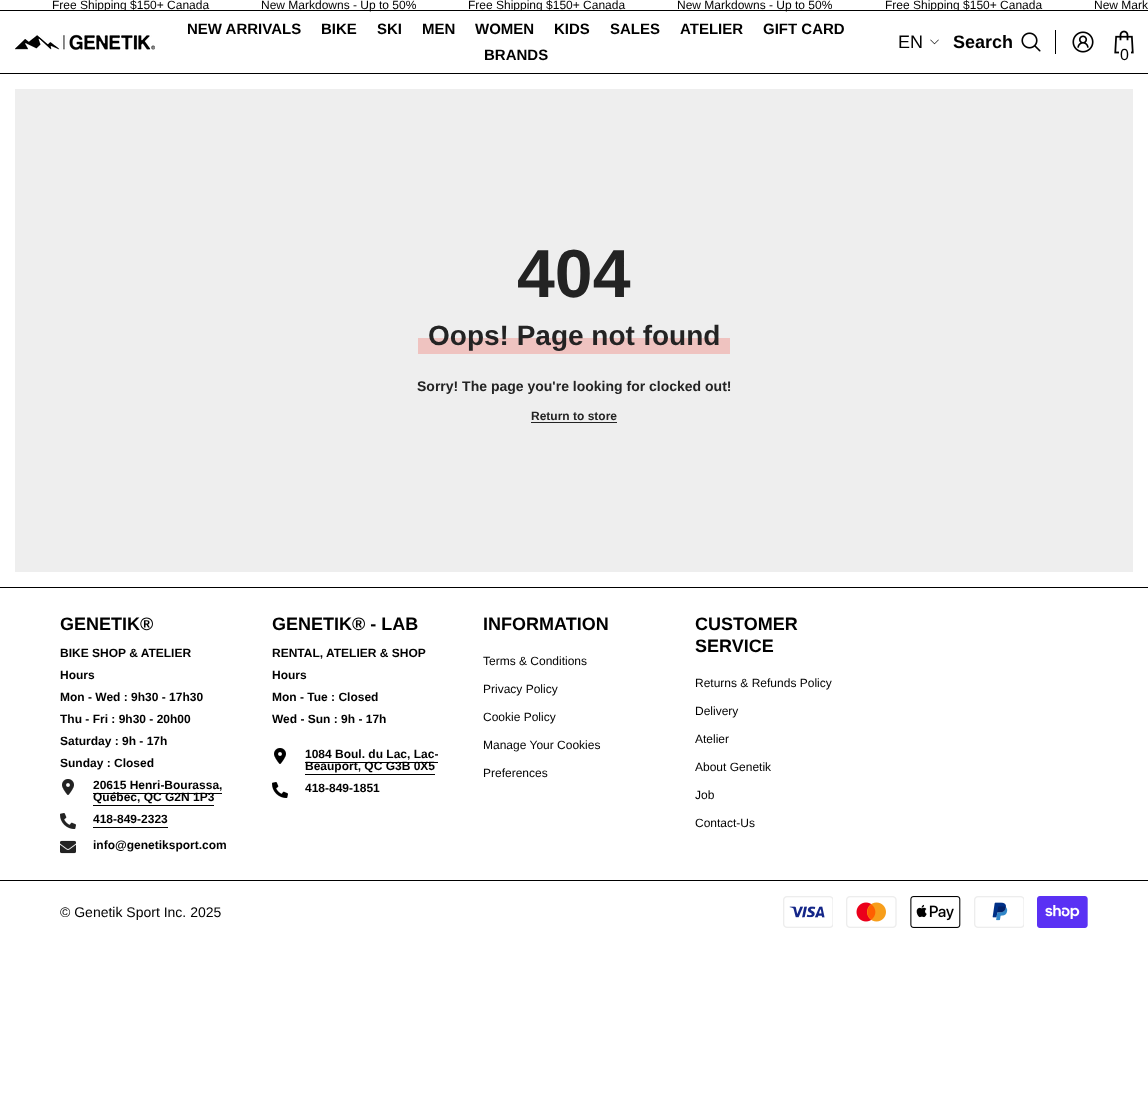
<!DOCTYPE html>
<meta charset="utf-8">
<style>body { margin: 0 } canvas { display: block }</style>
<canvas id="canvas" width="1148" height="1105"></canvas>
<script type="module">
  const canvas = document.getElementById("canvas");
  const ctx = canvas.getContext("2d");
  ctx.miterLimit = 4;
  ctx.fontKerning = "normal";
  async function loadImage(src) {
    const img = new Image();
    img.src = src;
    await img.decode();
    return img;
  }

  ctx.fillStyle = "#ffffff";
  ctx.fillRect(0, 0, 1148, 1105);
  ctx.save();
  ctx.beginPath();
  ctx.rect(0, 0, 1148, 10);
  ctx.clip();
  ctx.font = "12px Liberation Sans";
  ctx.fillStyle = "#000000";
  ctx.fillText("Free Shipping $150+ Canada", 52, 9);
  ctx.restore();
  ctx.font = "12px Liberation Sans";
  ctx.fillStyle = "#000000";
  ctx.fillText("New Markdowns - Up to 50%", 261, 9);
  ctx.save();
  ctx.beginPath();
  ctx.rect(0, 0, 1148, 10);
  ctx.clip();
  ctx.fillText("Free Shipping $150+ Canada", 468, 9);
  ctx.restore();
  ctx.fillText("New Markdowns - Up to 50%", 677, 9);
  ctx.save();
  ctx.beginPath();
  ctx.rect(0, 0, 1148, 10);
  ctx.clip();
  ctx.fillText("Free Shipping $150+ Canada", 885, 9);
  ctx.restore();
  ctx.fillText("New Mark", 1094, 9);
  ctx.fillRect(0, 10, 1148, 1);
  ctx.fillRect(0, 73, 1148, 1);
  ctx.drawImage(await loadImage("img1.png"), 15, 34, 140, 16);
  ctx.font = "bold 15px Liberation Sans";
  ctx.fillText("NEW ARRIVALS", 187, 34);
  ctx.fillText("BIKE", 321, 34);
  ctx.fillText("SKI", 377, 34);
  ctx.fillText("MEN", 422, 34);
  ctx.fillText("WOMEN", 475, 34);
  ctx.fillText("KIDS", 554, 34);
  ctx.fillText("SALES", 610, 34);
  ctx.fillText("ATELIER", 680, 34);
  ctx.fillText("GIFT CARD", 763, 34);
  ctx.fillText("BRANDS", 484, 60);
  ctx.font = "18px Liberation Sans";
  ctx.fillText("EN", 898, 48);
  ctx.drawImage(await loadImage("img2.png"), 930, 39, 9, 6);
  ctx.font = "bold 18px Liberation Sans";
  ctx.fillText("Search", 953, 48);
  ctx.drawImage(await loadImage("img3.png"), 1021, 32, 20, 20);
  ctx.fillRect(1055, 30, 1, 24);
  ctx.drawImage(await loadImage("img4.png"), 1072, 31, 22, 22);
  ctx.drawImage(await loadImage("img5.png"), 1114, 30, 20, 24);
  ctx.fillStyle = "#ffffff";
  ctx.beginPath();
  ctx.roundRect(1119, 44, 12, 17, 2);
  ctx.fill();
  ctx.font = "16px Liberation Sans";
  ctx.fillStyle = "#000000";
  ctx.fillText("0", 1120, 60);
  ctx.fillStyle = "#eeeeee";
  ctx.fillRect(15, 89, 1118, 483);
  ctx.font = "bold 68px Liberation Sans";
  ctx.fillStyle = "#232323";
  ctx.fillText("404", 517, 297);
  ctx.fillStyle = "#efc3c0";
  ctx.fillRect(418, 338, 312, 16);
  ctx.font = "bold 28px Liberation Sans";
  ctx.fillStyle = "#232323";
  ctx.fillText("Oops! Page not found", 428, 345);
  ctx.font = "bold 14px Liberation Sans";
  ctx.fillText("Sorry! The page you're looking for clocked out!", 417, 391);
  ctx.font = "bold 12px Liberation Sans";
  ctx.fillText("Return to store", 531, 420);
  ctx.fillRect(531, 422, 86, 1);
  ctx.fillStyle = "#000000";
  ctx.fillRect(0, 587, 1148, 1);
  ctx.font = "bold 18px Liberation Sans";
  ctx.fillText("GENETIK®", 60, 630);
  ctx.font = "bold 12px Liberation Sans";
  ctx.fillText("BIKE SHOP & ATELIER", 60, 657);
  ctx.fillText("Hours", 60, 679);
  ctx.fillText("Mon - Wed : 9h30 - 17h30", 60, 701);
  ctx.fillText("Thu - Fri : 9h30 - 20h00", 60, 723);
  ctx.fillText("Saturday : 9h - 17h", 60, 745);
  ctx.fillText("Sunday : Closed", 60, 767);
  ctx.drawImage(await loadImage("img6.png"), 62, 779, 12, 16);
  ctx.fillText("20615 Henri-Bourassa,", 93, 789);
  ctx.fillRect(93, 793, 129, 1);
  ctx.fillText("Québec, QC G2N 1P3", 93, 801);
  ctx.fillRect(93, 805, 121, 1);
  ctx.drawImage(await loadImage("img7.png"), 60, 813, 16, 16);
  ctx.fillText("418-849-2323", 93, 823);
  ctx.fillRect(93, 827, 75, 1);
  ctx.drawImage(await loadImage("img8.png"), 60, 840, 16, 14);
  ctx.fillText("info@genetiksport.com", 93, 849);
  ctx.font = "bold 18px Liberation Sans";
  ctx.fillText("GENETIK® - LAB", 272, 630);
  ctx.font = "bold 12px Liberation Sans";
  ctx.fillText("RENTAL, ATELIER & SHOP", 272, 657);
  ctx.fillText("Hours", 272, 679);
  ctx.fillText("Mon - Tue : Closed", 272, 701);
  ctx.fillText("Wed - Sun : 9h - 17h", 272, 723);
  ctx.drawImage(await loadImage("img9.png"), 274, 748, 12, 16);
  ctx.fillText("1084 Boul. du Lac, Lac-", 305, 758);
  ctx.fillRect(305, 762, 133, 1);
  ctx.fillText("Beauport, QC G3B 0X5", 305, 770);
  ctx.fillRect(305, 774, 130, 1);
  ctx.drawImage(await loadImage("img10.png"), 272, 782, 16, 16);
  ctx.fillText("418-849-1851", 305, 792);
  ctx.font = "bold 18px Liberation Sans";
  ctx.fillText("INFORMATION", 483, 630);
  ctx.font = "12px Liberation Sans";
  ctx.fillText("Terms & Conditions", 483, 665);
  ctx.fillText("Privacy Policy", 483, 693);
  ctx.fillText("Cookie Policy", 483, 721);
  ctx.fillText("Manage Your Cookies", 483, 749);
  ctx.fillText("Preferences", 483, 777);
  ctx.font = "bold 18px Liberation Sans";
  ctx.fillText("CUSTOMER", 695, 630);
  ctx.fillText("SERVICE", 695, 652);
  ctx.font = "12px Liberation Sans";
  ctx.fillText("Returns & Refunds Policy", 695, 687);
  ctx.fillText("Delivery", 695, 715);
  ctx.fillText("Atelier", 695, 743);
  ctx.fillText("About Genetik", 695, 771);
  ctx.fillText("Job", 695, 799);
  ctx.fillText("Contact-Us", 695, 827);
  ctx.fillRect(0, 880, 1148, 1);
  ctx.font = "14px Liberation Sans";
  ctx.fillText("© Genetik Sport Inc. 2025", 60, 917);
  ctx.drawImage(await loadImage("img11.png"), 783, 896, 50, 32);
  ctx.drawImage(await loadImage("img12.png"), 846, 896, 51, 32);
  ctx.drawImage(await loadImage("img13.png"), 910, 896, 51, 32);
  ctx.drawImage(await loadImage("img14.png"), 974, 896, 50, 32);
  ctx.drawImage(await loadImage("img15.png"), 1037, 896, 51, 32);
</script>
